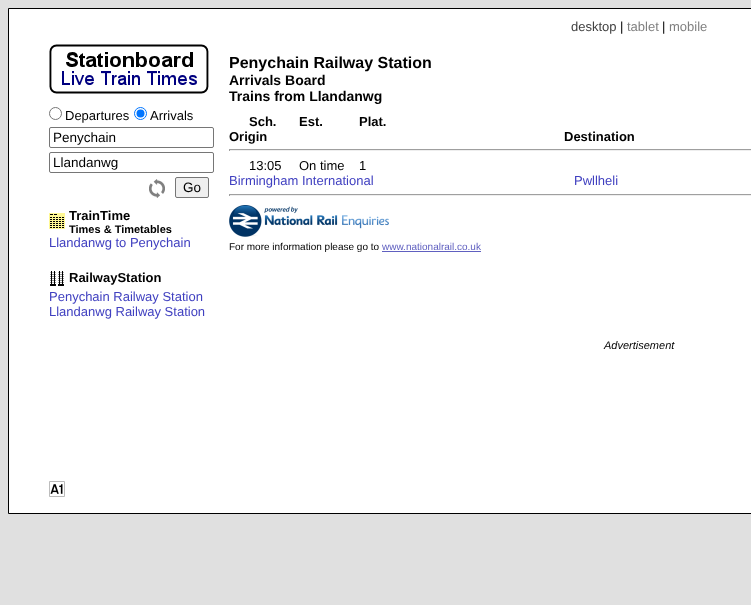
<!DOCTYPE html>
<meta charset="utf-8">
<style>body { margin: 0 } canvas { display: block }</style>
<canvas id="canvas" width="751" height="605"></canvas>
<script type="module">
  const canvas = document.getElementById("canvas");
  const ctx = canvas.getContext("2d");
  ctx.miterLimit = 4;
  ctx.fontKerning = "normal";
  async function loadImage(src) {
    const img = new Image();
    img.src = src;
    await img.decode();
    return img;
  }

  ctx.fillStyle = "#e0e0e0";
  ctx.fillRect(0, 0, 751, 605);
  ctx.fillStyle = "#ffffff";
  ctx.beginPath();
  ctx.rect(8.5, 8.5, 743, 505);
  ctx.fill();
  ctx.strokeStyle = "#000000";
  ctx.stroke();
  ctx.font = "13px Liberation Sans";
  ctx.fillStyle = "#404040";
  ctx.fillText("desktop", 571, 31);
  ctx.fillStyle = "#000000";
  ctx.fillText("|", 620, 31);
  ctx.fillStyle = "#808080";
  ctx.fillText("tablet", 627, 31);
  ctx.fillStyle = "#000000";
  ctx.fillText("|", 662, 31);
  ctx.fillStyle = "#808080";
  ctx.fillText("mobile", 669, 31);
  ctx.drawImage(await loadImage("img1.png"), 49, 44, 160, 50);
  ctx.beginPath();
  ctx.arc(55.5, 113.5, 6, 0, Math.PI * 2);
  ctx.strokeStyle = "#767676";
  ctx.stroke();
  ctx.fillStyle = "#000000";
  ctx.fillText("Departures", 65, 120);
  ctx.beginPath();
  ctx.arc(140.5, 113.5, 6, 0, Math.PI * 2);
  ctx.strokeStyle = "#0075ff";
  ctx.stroke();
  ctx.fillStyle = "#0075ff";
  ctx.beginPath();
  ctx.arc(140.5, 113.5, 4, 0, Math.PI * 2);
  ctx.fill();
  ctx.fillStyle = "#000000";
  ctx.fillText("Arrivals", 150, 120);
  ctx.beginPath();
  ctx.roundRect(49.5, 127.5, 164, 20, 1.5);
  ctx.strokeStyle = "#767676";
  ctx.stroke();
  ctx.font = "13.5px Liberation Sans";
  ctx.fillText("Penychain", 53, 142);
  ctx.beginPath();
  ctx.roundRect(49.5, 152.5, 164, 20, 1.5);
  ctx.stroke();
  ctx.fillText("Llandanwg", 53, 167);
  ctx.drawImage(await loadImage("img2.png"), 149, 179, 16, 19);
  ctx.fillStyle = "#efefef";
  ctx.beginPath();
  ctx.roundRect(175.5, 177.5, 33, 20, 1.5);
  ctx.fill();
  ctx.stroke();
  ctx.fillStyle = "#000000";
  ctx.fillText("Go", 183, 192);
  ctx.drawImage(await loadImage("img3.png"), 49, 213, 16, 16);
  ctx.font = "bold 13px Liberation Sans";
  ctx.fillText("TrainTime", 69, 220);
  ctx.font = "bold 11px Liberation Sans";
  ctx.fillText("Times & Timetables", 69, 233);
  ctx.font = "13px Liberation Sans";
  ctx.fillStyle = "#4040c0";
  ctx.fillText("Llandanwg to Penychain", 49, 247);
  ctx.drawImage(await loadImage("img4.png"), 50, 271, 14, 15);
  ctx.font = "bold 13px Liberation Sans";
  ctx.fillStyle = "#000000";
  ctx.fillText("RailwayStation", 69, 282);
  ctx.font = "13px Liberation Sans";
  ctx.fillStyle = "#4040c0";
  ctx.fillText("Penychain Railway Station", 49, 301);
  ctx.fillText("Llandanwg Railway Station", 49, 316);
  ctx.font = "bold 16px Liberation Sans";
  ctx.fillStyle = "#000000";
  ctx.fillText("Penychain Railway Station", 229, 68);
  ctx.font = "bold 14px Liberation Sans";
  ctx.fillText("Arrivals Board", 229, 85);
  ctx.fillText("Trains from Llandanwg", 229, 101);
  ctx.font = "bold 13px Liberation Sans";
  ctx.fillText("Sch.", 249, 126);
  ctx.fillText("Est.", 299, 126);
  ctx.fillText("Plat.", 359, 126);
  ctx.fillText("Origin", 229, 141);
  ctx.fillText("Destination", 564, 141);
  ctx.fillStyle = "#9f9f9f";
  ctx.fillRect(229, 149, 522, 1);
  ctx.fillStyle = "#eeeeee";
  ctx.fillRect(229, 150, 522, 1);
  ctx.fillStyle = "#9f9f9f";
  ctx.fillRect(229, 149, 1, 2);
  ctx.font = "13px Liberation Sans";
  ctx.fillStyle = "#000000";
  ctx.fillText("13:05", 249, 170);
  ctx.fillText("On time", 299, 170);
  ctx.fillText("1", 359, 170);
  ctx.fillStyle = "#4040c0";
  ctx.fillText("Birmingham International", 229, 185);
  ctx.fillText("Pwllheli", 574, 185);
  ctx.fillStyle = "#9f9f9f";
  ctx.fillRect(229, 194, 522, 1);
  ctx.fillStyle = "#eeeeee";
  ctx.fillRect(229, 195, 522, 1);
  ctx.fillStyle = "#9f9f9f";
  ctx.fillRect(229, 194, 1, 2);
  ctx.drawImage(await loadImage("img5.png"), 229, 205, 160, 32);
  ctx.font = "10px Liberation Sans";
  ctx.fillStyle = "#000000";
  ctx.fillText("For more information please go to", 229, 250);
  ctx.fillStyle = "#6060c0";
  ctx.fillText("www.nationalrail.co.uk", 382, 250);
  ctx.fillRect(382, 251, 99, 1);
  ctx.font = "italic 11px Liberation Sans";
  ctx.fillStyle = "#000000";
  ctx.fillText("Advertisement", 604, 349);
  ctx.drawImage(await loadImage("img6.png"), 49, 481, 16, 16);
</script>
